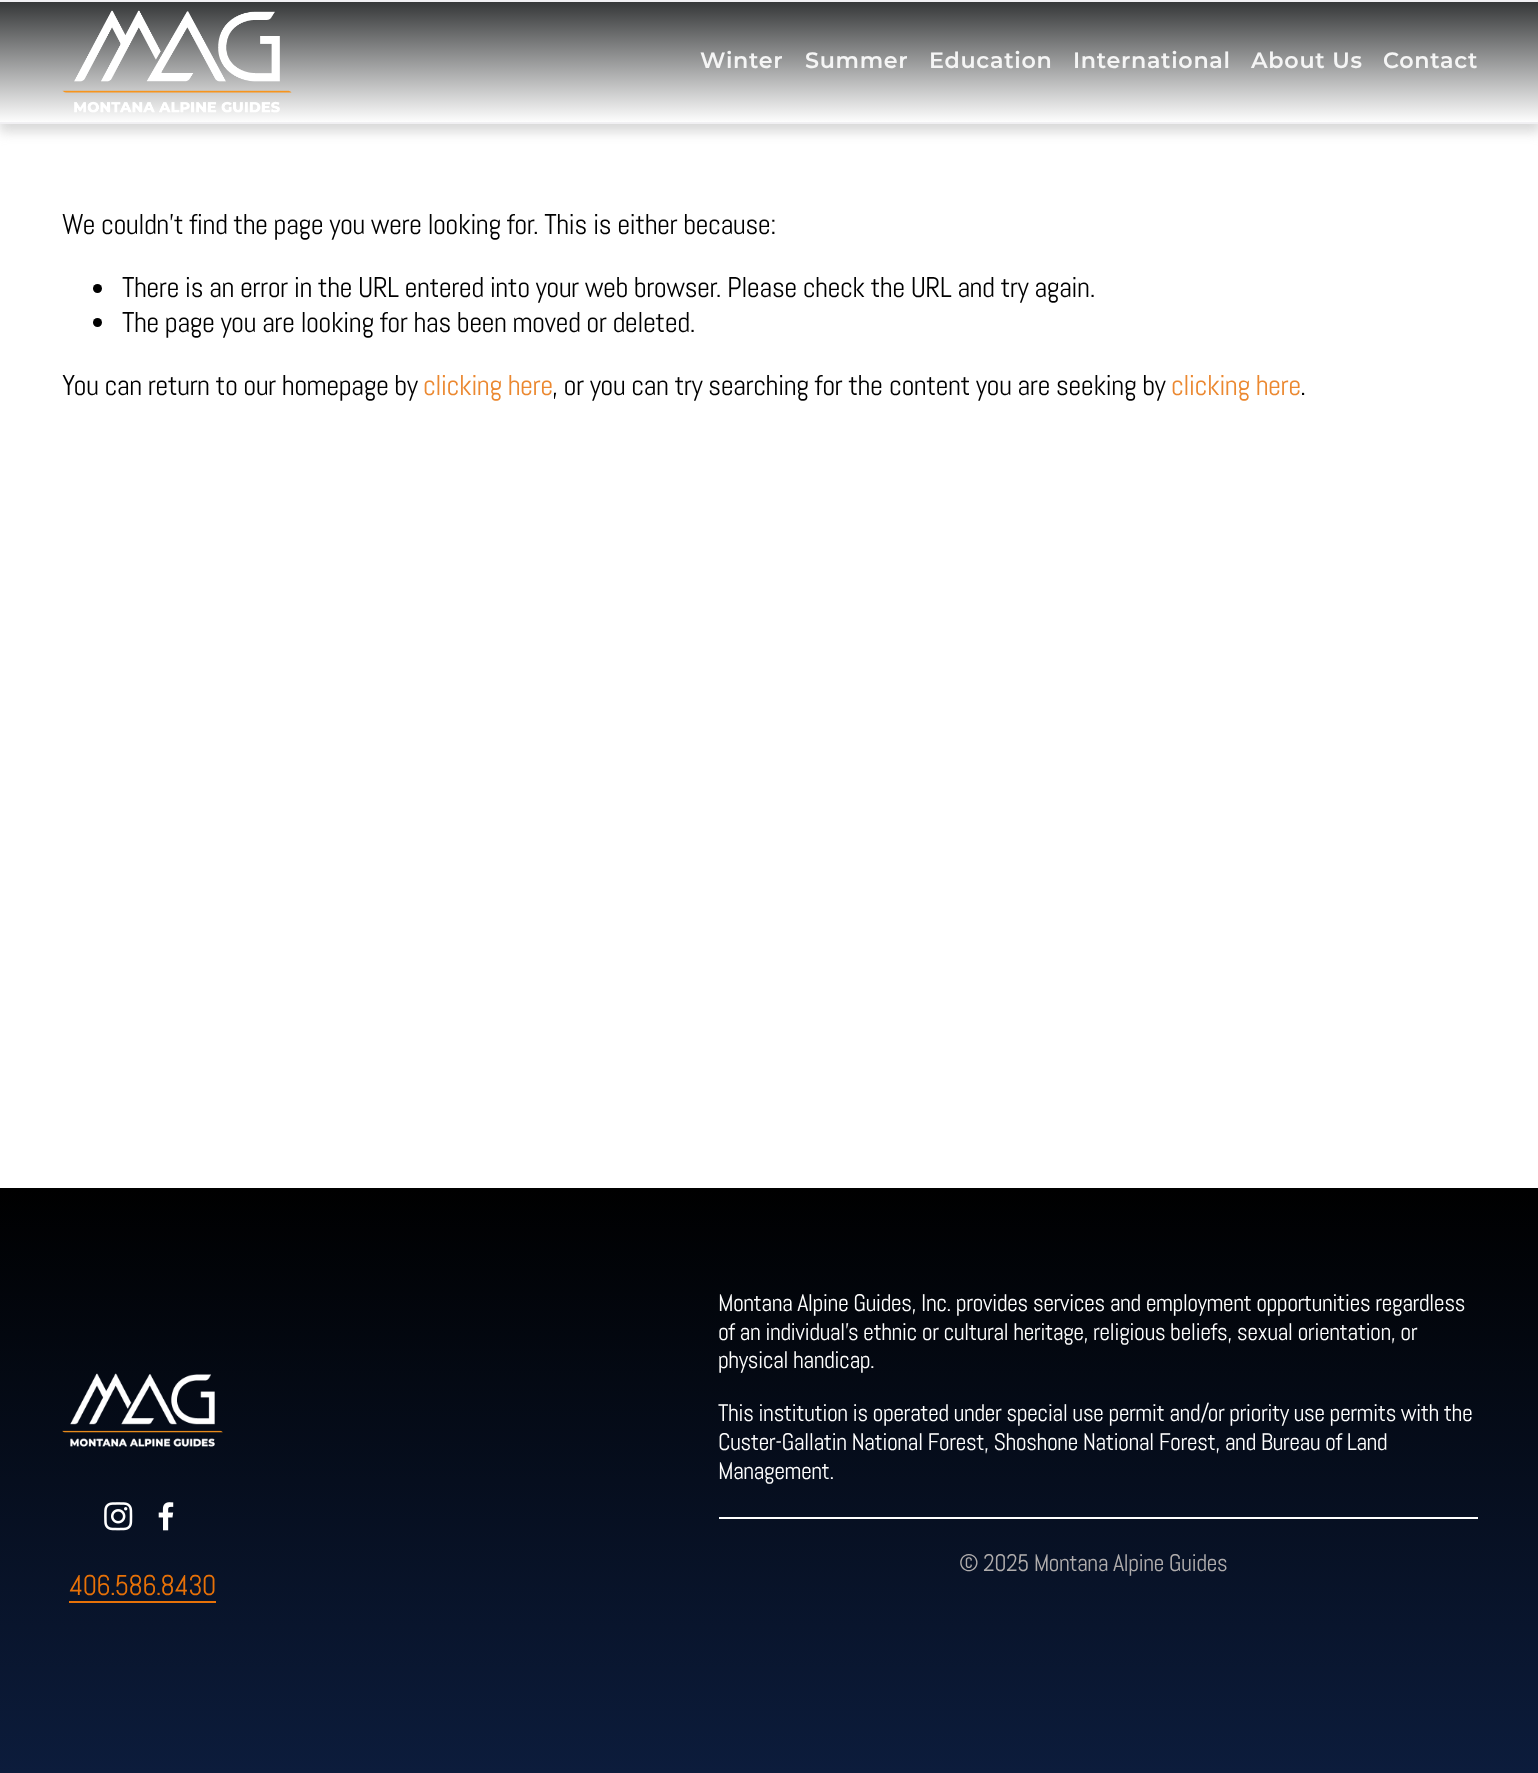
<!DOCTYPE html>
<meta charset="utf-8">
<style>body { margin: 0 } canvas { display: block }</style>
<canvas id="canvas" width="1538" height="1773"></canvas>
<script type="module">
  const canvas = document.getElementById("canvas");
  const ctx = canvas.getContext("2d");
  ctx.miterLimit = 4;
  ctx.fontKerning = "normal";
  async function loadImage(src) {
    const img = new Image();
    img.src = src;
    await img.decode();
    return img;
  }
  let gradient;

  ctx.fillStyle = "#ffffff";
  ctx.fillRect(0, 0, 1538, 1773);
  ctx.fillStyle = "#d9d9d9";
  ctx.filter = "blur(6px)";
  ctx.beginPath();
  ctx.rect(-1, 6, 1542, 126);
  ctx.fill();
  ctx.filter = "none";
  ctx.fillStyle = "#f1f0f3";
  ctx.fillRect(0, 0, 1538, 2);
  ctx.fillRect(0, 122, 1538, 2);
  gradient = ctx.createLinearGradient(770, 0, 770, 123);
  gradient.addColorStop(0, "#323435");
  gradient.addColorStop(1, "#ffffff");
  ctx.fillStyle = gradient;
  ctx.fillRect(0, 2, 1538, 120);
  ctx.drawImage(await loadImage("img1.png"), 62, 10, 230, 103);
  ctx.letterSpacing = "0.7px";
  ctx.font = "600 22.25px Montserrat";
  ctx.fillStyle = "#f5f5f5";
  ctx.fillText("Winter", 700, 68);
  ctx.fillText("Summer", 805, 68);
  ctx.fillText("Education", 929, 68);
  ctx.fillText("International", 1073, 68);
  ctx.fillText("About Us", 1251, 68);
  ctx.fillText("Contact", 1383, 68);
  ctx.letterSpacing = "-0.57px";
  ctx.font = "28.6px Abel";
  ctx.fillStyle = "#000000";
  ctx.fillText("We couldn't find the page you were looking for. This is either because:", 62, 234);
  ctx.beginPath();
  ctx.arc(97.5, 288.5, 4.5, 0, Math.PI * 2);
  ctx.fill();
  ctx.fillText("There is an error in the URL entered into your web browser. Please check the URL and try again.", 122, 297);
  ctx.beginPath();
  ctx.arc(97.5, 322.5, 4.5, 0, Math.PI * 2);
  ctx.fill();
  ctx.fillText("The page you are looking for has been moved or deleted.", 122, 332);
  ctx.fillText("You can return to our homepage by", 62, 395);
  ctx.fillStyle = "#eb8830";
  ctx.fillText("clicking here", 423, 395);
  ctx.fillStyle = "#000000";
  ctx.fillText(", or you can try searching for the", 552, 395);
  ctx.fillText("content you are seeking by", 889, 395);
  ctx.fillStyle = "#eb8830";
  ctx.fillText("clicking here", 1171, 395);
  ctx.fillStyle = "#000000";
  ctx.fillText(".", 1300, 395);
  gradient = ctx.createLinearGradient(770, 1773, 770, 1188);
  gradient.addColorStop(0, "#0c1c3c");
  gradient.addColorStop(1, "#000000");
  ctx.fillStyle = gradient;
  ctx.fillRect(0, 1188, 1538, 585);
  ctx.drawImage(await loadImage("img2.png"), 62, 1373, 161, 74);
  ctx.font = "24px Abel";
  ctx.fillStyle = "#ffffff";
  ctx.fillText("Montana Alpine Guides, Inc. provides services and employment opportunities regardless", 718, 1311);
  ctx.fillText("of an individual’s ethnic or cultural heritage, religious beliefs, sexual orientation, or", 718, 1340);
  ctx.fillText("physical handicap.", 718, 1368);
  ctx.fillText("This institution is operated under special use permit and/or priority use permits with the", 718, 1421);
  ctx.fillText("Custer-Gallatin National Forest, Shoshone National Forest, and Bureau of Land", 718, 1450);
  ctx.fillText("Management.", 718, 1479);
  ctx.drawImage(await loadImage("img3.png"), 104, 1502, 29, 29);
  ctx.drawImage(await loadImage("img4.png"), 158, 1502, 16, 29);
  ctx.fillRect(719, 1517, 759, 2);
  ctx.fillStyle = "#b0adad";
  ctx.fillText("© 2025 Montana Alpine Guides", 959, 1571);
  ctx.font = "28.6px Abel";
  ctx.fillStyle = "#e77108";
  ctx.fillText("406.586.8430", 69, 1595);
  ctx.fillRect(69, 1601, 147, 2);
</script>
